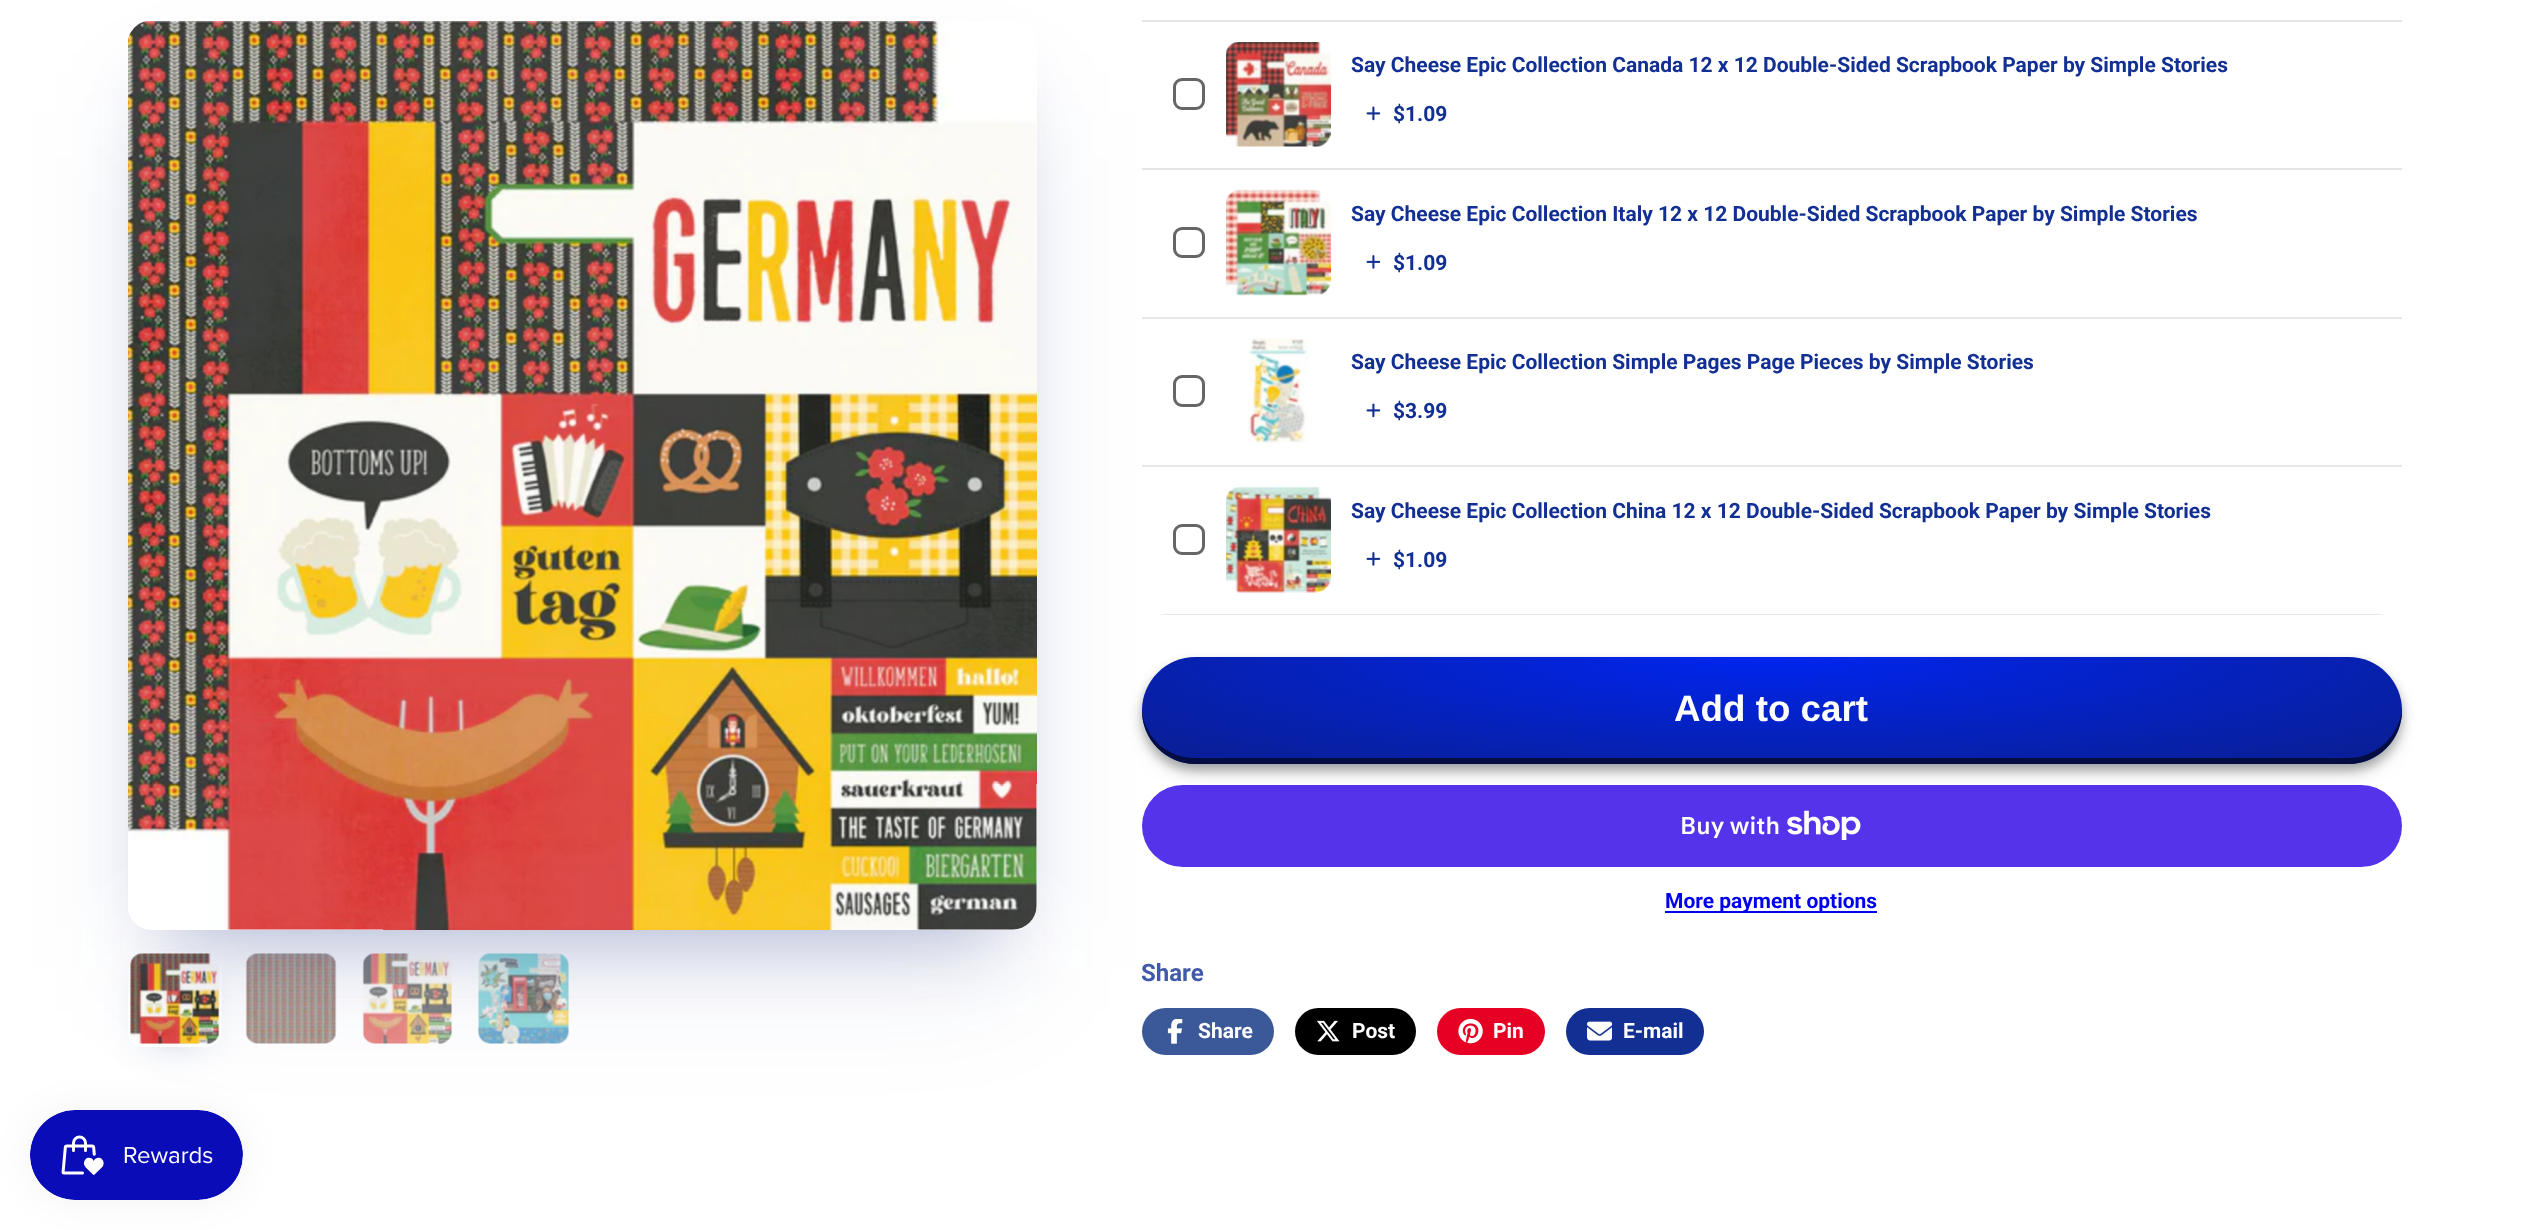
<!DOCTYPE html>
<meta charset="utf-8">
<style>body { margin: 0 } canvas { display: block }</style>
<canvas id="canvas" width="2527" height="1230"></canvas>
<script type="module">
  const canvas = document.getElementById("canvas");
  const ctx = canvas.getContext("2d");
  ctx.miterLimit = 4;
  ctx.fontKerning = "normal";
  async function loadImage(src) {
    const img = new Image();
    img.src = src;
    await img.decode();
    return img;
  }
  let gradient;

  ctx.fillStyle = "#ffffff";
  ctx.fillRect(0, 0, 2527, 1230);
  ctx.fillStyle = "rgba(15, 40, 124, 0.3)";
  ctx.filter = "blur(21px)";
  ctx.beginPath();
  ctx.rect(149, 983, 52, 54);
  ctx.fill();
  ctx.filter = "none";
  ctx.beginPath();
  ctx.roundRect(129.5, 952.5, 91, 93, 13.5);
  ctx.strokeStyle = "#ffffff";
  ctx.lineWidth = 3;
  ctx.stroke();
  ctx.drawImage(await loadImage("img2.png"), 130, 953, 90, 91);
  ctx.drawImage(await loadImage("img3.png"), 245, 953, 92, 91);
  ctx.drawImage(await loadImage("img4.png"), 362, 953, 90, 91);
  ctx.drawImage(await loadImage("img5.png"), 478, 953, 91, 91);
  ctx.filter = "blur(39.5px)";
  ctx.beginPath();
  ctx.rect(167, 101, 831, 829);
  ctx.fill();
  ctx.filter = "none";
  ctx.fillStyle = "rgba(15, 40, 124, 0.1)";
  ctx.filter = "blur(65.5px)";
  ctx.beginPath();
  ctx.rect(155, 113, 856, 856);
  ctx.fill();
  ctx.filter = "none";
  ctx.fillStyle = "#ffffff";
  ctx.beginPath();
  ctx.roundRect(128, 21, 909, 909, 24);
  ctx.fill();
  ctx.drawImage(await loadImage("img1.png"), 128, 21, 909, 909);
  ctx.fillStyle = "#e6e6e6";
  ctx.fillRect(1142, 20, 1260, 2);
  ctx.fillRect(1142, 168, 1260, 2);
  ctx.beginPath();
  ctx.roundRect(1174.5, 79.5, 29, 29, 7.5);
  ctx.strokeStyle = "#666666";
  ctx.stroke();
  ctx.drawImage(await loadImage("img6.png"), 1226, 42, 105, 105);
  ctx.font = "bold 21px Roboto";
  ctx.fillStyle = "#122f93";
  ctx.fillText("Say Cheese Epic Collection Canada 12 x 12 Double-Sided Scrapbook Paper by Simple Stories", 1351, 72);
  ctx.drawImage(await loadImage("img7.png"), 1366, 106, 15, 15);
  ctx.fillText("$1.09", 1393, 121);
  ctx.fillStyle = "#e6e6e6";
  ctx.fillRect(1142, 317, 1260, 2);
  ctx.beginPath();
  ctx.roundRect(1174.5, 228.5, 29, 28, 7.5);
  ctx.stroke();
  ctx.drawImage(await loadImage("img8.png"), 1226, 189, 105, 107);
  ctx.fillStyle = "#122f93";
  ctx.fillText("Say Cheese Epic Collection Italy 12 x 12 Double-Sided Scrapbook Paper by Simple Stories", 1351, 221);
  ctx.drawImage(await loadImage("img9.png"), 1366, 255, 15, 14);
  ctx.fillText("$1.09", 1393, 270);
  ctx.fillStyle = "#e6e6e6";
  ctx.fillRect(1142, 465, 1260, 2);
  ctx.beginPath();
  ctx.roundRect(1174.5, 376.5, 29, 29, 7.5);
  ctx.stroke();
  ctx.drawImage(await loadImage("img10.png"), 1248, 338, 60, 105);
  ctx.fillStyle = "#122f93";
  ctx.fillText("Say Cheese Epic Collection Simple Pages Page Pieces by Simple Stories", 1351, 369);
  ctx.drawImage(await loadImage("img7.png"), 1366, 403, 15, 15);
  ctx.fillText("$3.99", 1393, 418);
  ctx.save();
  ctx.beginPath();
  ctx.roundRect(1142, -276, 1260, 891, 24);
  ctx.clip();
  ctx.fillStyle = "#e6e6e6";
  ctx.fillRect(1159, 614, 1226, 1);
  ctx.restore();
  ctx.beginPath();
  ctx.roundRect(1174.5, 525.5, 29, 28, 7.5);
  ctx.stroke();
  ctx.drawImage(await loadImage("img11.png"), 1226, 486, 105, 107);
  ctx.fillText("Say Cheese Epic Collection China 12 x 12 Double-Sided Scrapbook Paper by Simple Stories", 1351, 518);
  ctx.drawImage(await loadImage("img9.png"), 1366, 552, 15, 14);
  ctx.fillText("$1.09", 1393, 567);
  ctx.fillStyle = "#5433eb";
  ctx.beginPath();
  ctx.roundRect(1142, 785, 1260, 82, 41);
  ctx.fill();
  ctx.fillStyle = "rgba(1, 2, 8, 0.15)";
  ctx.filter = "blur(11px)";
  ctx.beginPath();
  ctx.roundRect(1148, 674, 1248, 96, 48);
  ctx.fill();
  ctx.filter = "none";
  ctx.fillStyle = "rgba(1, 2, 8, 0.3)";
  ctx.filter = "blur(5.5px)";
  ctx.beginPath();
  ctx.roundRect(1142, 663, 1260, 107, 53.5);
  ctx.fill();
  ctx.filter = "none";
  ctx.save();
  ctx.beginPath();
  ctx.roundRect(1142, 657, 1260, 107, 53.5);
  ctx.clip();
  ctx.fillStyle = "rgba(1, 2, 8, 0.15)";
  ctx.filter = "blur(11px)";
  ctx.beginPath();
  ctx.roundRect(1148, 674, 1248, 96, 48);
  ctx.fill();
  ctx.filter = "none";
  ctx.fillStyle = "rgba(1, 2, 8, 0.3)";
  ctx.filter = "blur(5.5px)";
  ctx.beginPath();
  ctx.roundRect(1142, 663, 1260, 107, 53.5);
  ctx.fill();
  ctx.filter = "none";
  ctx.restore();
  gradient = ctx.createRadialGradient(1772, 3876.74, 0, 1772, 3876.74, 891);
  gradient.addColorStop(0, "#0025ef");
  gradient.addColorStop(0.9, "#091f99");
  ctx.fillStyle = gradient;
  ctx.beginPath();
  ctx.roundRect(1142, 657, 1260, 107, 53.5);
  ctx.save();
  ctx.clip();
  ctx.scale(1, 151 / 891);
  ctx.fillRect(0, 0, 2527, 7258);
  ctx.restore();
  ctx.fillStyle = "#040d42";
  ctx.beginPath();
  ctx.moveTo(1142, 708);
  ctx.bezierCurveTo(1141, 738, 1165, 764, 1196, 764);
  ctx.lineTo(2348, 764);
  ctx.bezierCurveTo(2379, 764, 2403, 738, 2402, 708);
  ctx.bezierCurveTo(2400, 735, 2377, 758, 2348, 758);
  ctx.lineTo(1195, 758);
  ctx.bezierCurveTo(1166, 758, 1143, 736, 1142, 708);
  ctx.closePath();
  ctx.fill();
  ctx.font = "bold 36.75px Liberation Sans";
  ctx.fillStyle = "#ffffff";
  ctx.fillText("Add to cart", 1674, 721);
  ctx.font = "600 24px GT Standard";
  ctx.fillText("Buy with", 1680, 834);
  ctx.drawImage(await loadImage("img12.png"), 1787, 810, 74, 30);
  ctx.fillStyle = "#0000ee";
  ctx.fillRect(1665, 911, 212, 2);
  ctx.font = "bold 21px Roboto";
  ctx.fillText("More payment options", 1665, 908);
  ctx.font = "bold 24px Roboto";
  ctx.fillStyle = "#4159a9";
  ctx.fillText("Share", 1141, 981);
  ctx.fillStyle = "#3b5998";
  ctx.beginPath();
  ctx.roundRect(1142, 1008, 132, 47, 23.5);
  ctx.fill();
  ctx.drawImage(await loadImage("img13.png"), 1167, 1019, 16, 25);
  ctx.font = "bold 21px Roboto";
  ctx.fillStyle = "#ffffff";
  ctx.fillText("Share", 1198, 1038);
  ctx.fillStyle = "#000000";
  ctx.beginPath();
  ctx.roundRect(1295, 1008, 121, 47, 23.5);
  ctx.fill();
  ctx.drawImage(await loadImage("img14.png"), 1317, 1020, 23, 22);
  ctx.fillStyle = "#ffffff";
  ctx.fillText("Post", 1352, 1038);
  ctx.fillStyle = "#e60023";
  ctx.beginPath();
  ctx.roundRect(1437, 1008, 108, 47, 23.5);
  ctx.fill();
  ctx.drawImage(await loadImage("img15.png"), 1458, 1019, 25, 25);
  ctx.fillStyle = "#ffffff";
  ctx.fillText("Pin", 1493, 1038);
  ctx.fillStyle = "#122f93";
  ctx.beginPath();
  ctx.roundRect(1566, 1008, 138, 47, 23.5);
  ctx.fill();
  ctx.drawImage(await loadImage("img16.png"), 1587, 1021, 25, 20);
  ctx.fillStyle = "#ffffff";
  ctx.fillText("E-mail", 1623, 1038);
  ctx.fillStyle = "rgba(0, 0, 0, 0.05)";
  ctx.filter = "blur(19px)";
  ctx.beginPath();
  ctx.roundRect(30, 1110, 213, 90, 45);
  ctx.fill();
  ctx.filter = "none";
  ctx.drawImage(await loadImage("img17.png"), 30, 1110, 213, 90);
</script>
